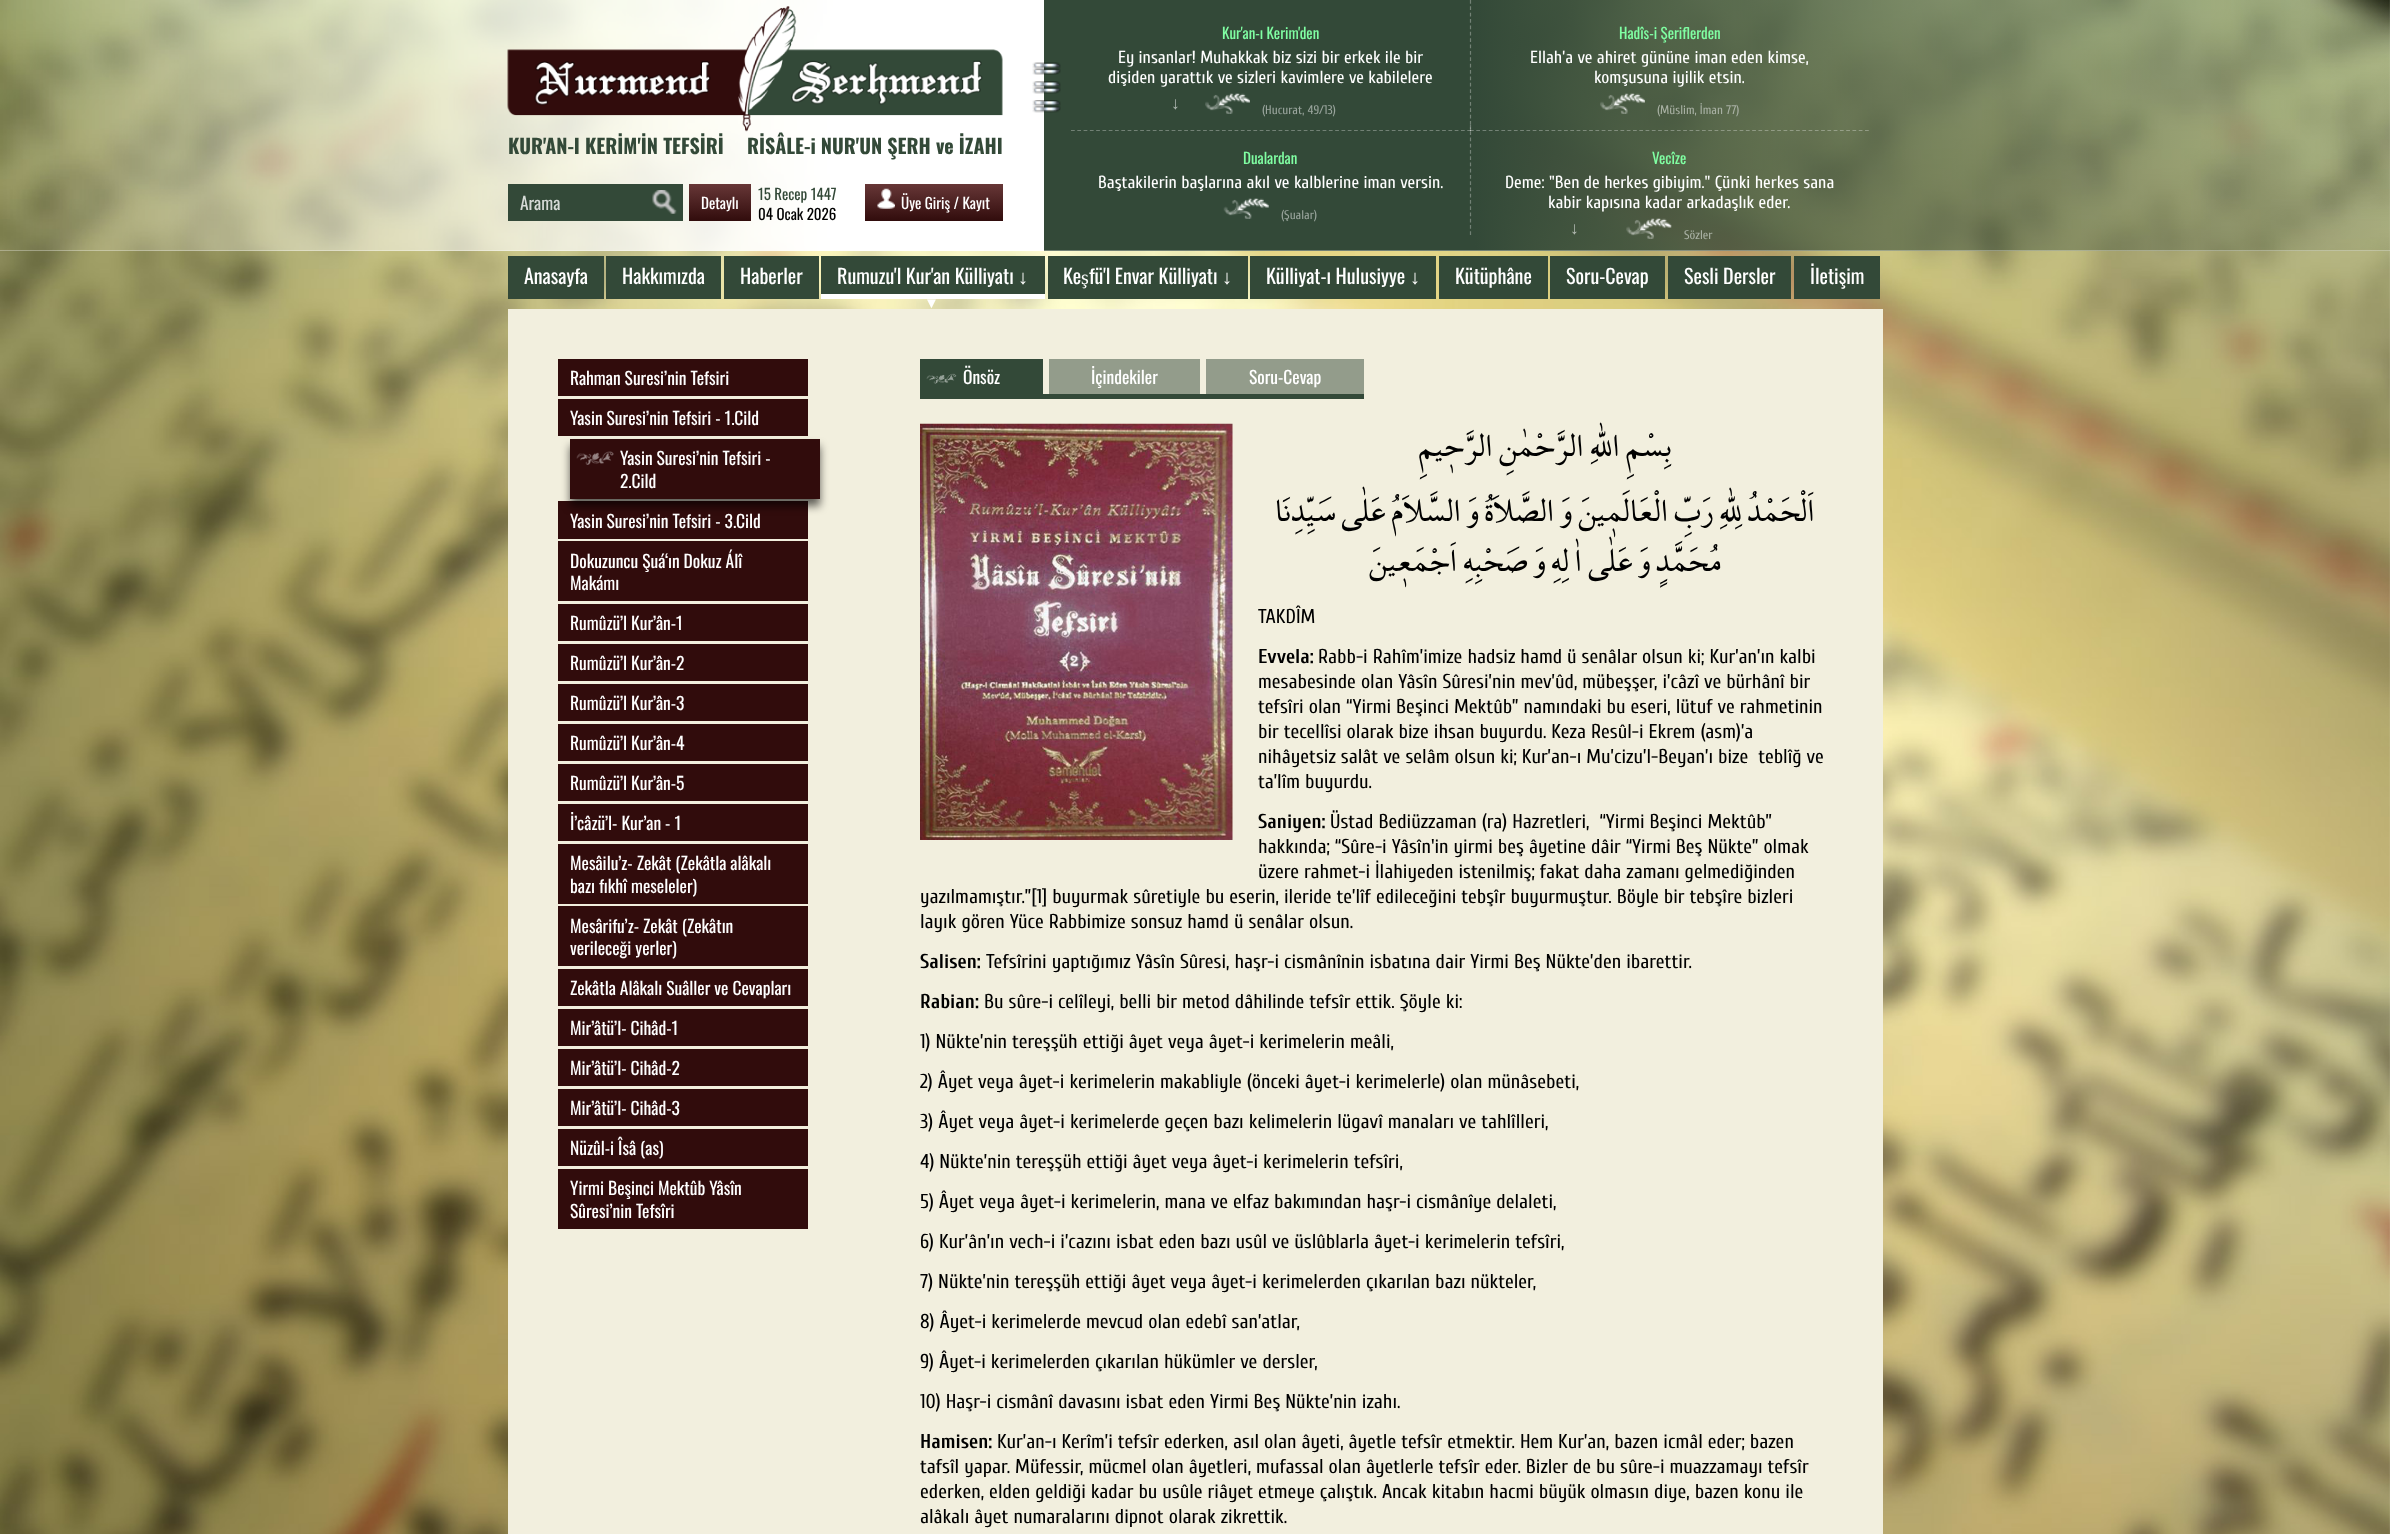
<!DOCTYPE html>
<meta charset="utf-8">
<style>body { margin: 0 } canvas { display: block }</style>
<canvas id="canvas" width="2390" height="1534"></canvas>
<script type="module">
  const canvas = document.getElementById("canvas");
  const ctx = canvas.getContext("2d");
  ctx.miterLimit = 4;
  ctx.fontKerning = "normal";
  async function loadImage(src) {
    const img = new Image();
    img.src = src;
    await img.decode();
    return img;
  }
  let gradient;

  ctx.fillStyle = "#ffffff";
  ctx.fillRect(0, 0, 2390, 1534);
  ctx.drawImage(await loadImage("img1.png"), 0, 0, 2390, 1534);
  ctx.drawImage(await loadImage("img2.png"), 507, 6, 496, 126);
  ctx.font = "bold 20px Oswald";
  ctx.fillStyle = "#334938";
  ctx.fillText("KUR'AN-I KERİM'İN TEFSİRİ", 508, 154);
  ctx.fillText("RİSÂLE-i NUR'UN ŞERH ve İZAHI", 747, 154);
  ctx.fillRect(508, 184, 175, 37);
  ctx.font = "17.5px Oswald";
  ctx.fillStyle = "#d6dbd7";
  ctx.fillText("Arama", 520, 210);
  ctx.drawImage(await loadImage("img3.png"), 652, 190, 25, 24);
  gradient = ctx.createLinearGradient(720, 184, 720, 221);
  gradient.addColorStop(0, "#673737");
  gradient.addColorStop(1, "#310c0c");
  ctx.fillStyle = gradient;
  ctx.fillRect(689, 184, 62, 37);
  ctx.font = "15px Oswald";
  ctx.fillStyle = "#ffffff";
  ctx.fillText("Detaylı", 701, 209);
  ctx.fillStyle = "#334938";
  ctx.fillText("15 Recep 1447", 758, 200);
  ctx.fillStyle = "#000000";
  ctx.fillText("04 Ocak 2026", 758, 220);
  gradient = ctx.createLinearGradient(934, 184, 934, 221);
  gradient.addColorStop(0, "#673737");
  gradient.addColorStop(1, "#310c0c");
  ctx.fillStyle = gradient;
  ctx.fillRect(865, 184, 138, 37);
  ctx.drawImage(await loadImage("img4.png"), 877, 188, 18, 21);
  ctx.fillStyle = "#ffffff";
  ctx.fillText("Üye Giriş / Kayıt", 901, 209);
  gradient = ctx.createLinearGradient(1044, 125, 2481, 125);
  gradient.addColorStop(0, "#334938");
  gradient.addColorStop(0.3, "#334938");
  gradient.addColorStop(1, "rgba(51, 73, 56, 0)");
  ctx.fillStyle = gradient;
  ctx.fillRect(1044, 0, 1346, 251);
  ctx.fillStyle = "rgba(255, 255, 255, 0.31)";
  ctx.fillRect(1044, 250, 1346, 1);
  ctx.drawImage(await loadImage("img5.png"), 1032, 62, 29, 13);
  ctx.drawImage(await loadImage("img6.png"), 1032, 81, 29, 13);
  ctx.drawImage(await loadImage("img7.png"), 1032, 100, 29, 13);
  ctx.beginPath();
  ctx.moveTo(1470.5, 0);
  ctx.lineTo(1470.5, 131);
  ctx.strokeStyle = "#738276";
  ctx.lineWidth = 1.2;
  ctx.setLineDash([3.75, 2.62]);
  ctx.stroke();
  ctx.beginPath();
  ctx.moveTo(1071, 130.5);
  ctx.lineTo(1471, 130.5);
  ctx.strokeStyle = "rgba(255, 255, 255, 0.31)";
  ctx.setLineDash([3.75, 2.54]);
  ctx.stroke();
  ctx.fillStyle = "#80ffa3";
  ctx.fillText("Kur'an-ı Kerim'den", 1222, 39);
  ctx.font = "17.5px Cuprum";
  ctx.fillStyle = "#ffffff";
  ctx.fillText("Ey insanlar! Muhakkak biz sizi bir erkek ile bir", 1118, 63);
  ctx.fillText("dişiden yarattık ve sizleri kavimlere ve kabilelere", 1108, 83);
  ctx.font = "17.5px Liberation Sans";
  ctx.fillStyle = "#adb6af";
  ctx.fillText("↓", 1171, 109);
  ctx.drawImage(await loadImage("img8.png"), 1205, 93, 45, 21);
  ctx.font = "12.5px Cuprum";
  ctx.fillStyle = "#99a49c";
  ctx.fillText("(Hucurat, 49/13)", 1262, 114);
  ctx.beginPath();
  ctx.moveTo(1470, 130.5);
  ctx.lineTo(1869, 130.5);
  ctx.setLineDash([3.75, 2.52]);
  ctx.stroke();
  ctx.font = "15px Oswald";
  ctx.fillStyle = "#80ffa3";
  ctx.fillText("Hadîs-i Şeriflerden", 1619, 39);
  ctx.font = "17.5px Cuprum";
  ctx.fillStyle = "#ffffff";
  ctx.fillText("Ellah’a ve ahiret gününe iman eden kimse,", 1530, 63);
  ctx.fillText("komşusuna iyilik etsin.", 1594, 83);
  ctx.drawImage(await loadImage("img9.png"), 1600, 93, 45, 21);
  ctx.font = "12.5px Cuprum";
  ctx.fillStyle = "#a8b0a3";
  ctx.fillText("(Müslim, İman 77)", 1657, 114);
  ctx.beginPath();
  ctx.moveTo(1470.5, 125);
  ctx.lineTo(1470.5, 235);
  ctx.setLineDash([3.75, 2.5]);
  ctx.stroke();
  ctx.font = "15px Oswald";
  ctx.fillStyle = "#80ffa3";
  ctx.fillText("Dualardan", 1243, 164);
  ctx.font = "17.5px Cuprum";
  ctx.fillStyle = "#ffffff";
  ctx.fillText("Baştakilerin başlarına akıl ve kalblerine iman versin.", 1098, 188);
  ctx.drawImage(await loadImage("img10.png"), 1223, 198, 46, 21);
  ctx.font = "12.5px Cuprum";
  ctx.fillStyle = "#99a49c";
  ctx.fillText("(Şualar)", 1281, 219);
  ctx.font = "15px Oswald";
  ctx.fillStyle = "#80ffa3";
  ctx.fillText("Vecîze", 1652, 164);
  ctx.font = "17.5px Cuprum";
  ctx.fillStyle = "#ffffff";
  ctx.fillText("Deme: \"Ben de herkes gibiyim.\" Çünki herkes sana", 1505, 188);
  ctx.fillText("kabir kapısına kadar arkadaşlık eder.", 1548, 208);
  ctx.font = "17.5px Liberation Sans";
  ctx.fillStyle = "#b3bab2";
  ctx.fillText("↓", 1570, 234);
  ctx.drawImage(await loadImage("img11.png"), 1626, 218, 46, 21);
  ctx.font = "12.5px Cuprum";
  ctx.fillStyle = "#a8b0a3";
  ctx.fillText("Sözler", 1684, 239);
  ctx.fillStyle = "rgba(255, 255, 255, 0.31)";
  ctx.fillRect(0, 250, 754, 1);
  ctx.fillStyle = "#334938";
  ctx.fillRect(508, 256, 96, 43);
  ctx.font = "20px Oswald";
  ctx.fillStyle = "#ffffff";
  ctx.fillText("Anasayfa", 524, 284);
  ctx.fillStyle = "#334938";
  ctx.fillRect(606, 256, 115, 43);
  ctx.fillStyle = "#ffffff";
  ctx.fillText("Hakkımızda", 622, 284);
  ctx.fillStyle = "#334938";
  ctx.fillRect(724, 256, 95, 43);
  ctx.fillStyle = "#ffffff";
  ctx.fillText("Haberler", 740, 284);
  ctx.fillStyle = "#334938";
  ctx.fillRect(821, 256, 224, 38);
  ctx.fillStyle = "#ffffff";
  ctx.fillRect(821, 294, 224, 5);
  ctx.fillText("Rumuzu'l Kur'an Külliyatı", 837, 284);
  ctx.font = "20px Liberation Serif";
  ctx.fillText("↓", 1018, 284);
  ctx.font = "15px Liberation Serif";
  ctx.fillText("▼", 924, 308);
  ctx.fillStyle = "#334938";
  ctx.fillRect(1048, 256, 200, 43);
  ctx.font = "20px Oswald";
  ctx.fillStyle = "#ffffff";
  ctx.fillText("Ke", 1063, 284);
  ctx.font = "20px Liberation Serif";
  ctx.fillText("ş", 1081, 284);
  ctx.font = "20px Oswald";
  ctx.fillText("fü'l Envar Külliyatı", 1089, 284);
  ctx.font = "20px Liberation Serif";
  ctx.fillText("↓", 1222, 284);
  ctx.fillStyle = "#334938";
  ctx.fillRect(1250, 256, 186, 43);
  ctx.font = "20px Oswald";
  ctx.fillStyle = "#ffffff";
  ctx.fillText("Külliyat-ı Hulusiyye", 1266, 284);
  ctx.font = "20px Liberation Serif";
  ctx.fillText("↓", 1410, 284);
  ctx.fillStyle = "#334938";
  ctx.fillRect(1439, 256, 109, 43);
  ctx.font = "20px Oswald";
  ctx.fillStyle = "#ffffff";
  ctx.fillText("Kütüphâne", 1455, 284);
  ctx.fillStyle = "#334938";
  ctx.fillRect(1550, 256, 115, 43);
  ctx.fillStyle = "#ffffff";
  ctx.fillText("Soru-Cevap", 1566, 284);
  ctx.fillStyle = "#334938";
  ctx.fillRect(1668, 256, 123, 43);
  ctx.fillStyle = "#ffffff";
  ctx.fillText("Sesli Dersler", 1684, 284);
  ctx.fillStyle = "#334938";
  ctx.fillRect(1794, 256, 86, 43);
  ctx.fillStyle = "#ffffff";
  ctx.fillText("İletişim", 1810, 284);
  ctx.fillStyle = "#f2efde";
  ctx.fillRect(508, 309, 1375, 1225);
  ctx.fillStyle = "#310c0c";
  ctx.fillRect(558, 359, 250, 37);
  ctx.font = "17.5px Oswald";
  ctx.fillStyle = "#ffffff";
  ctx.fillText("Rahman Suresi’nin Tefsiri", 570, 385);
  ctx.fillStyle = "#310c0c";
  ctx.fillRect(558, 399, 250, 37);
  ctx.fillStyle = "#ffffff";
  ctx.fillText("Yasin Suresi’nin Tefsiri - 1.Cild", 570, 425);
  ctx.fillStyle = "#310c0c";
  ctx.fillRect(558, 501, 250, 38);
  ctx.fillStyle = "rgba(0, 0, 0, 0.6)";
  ctx.filter = "blur(4px)";
  ctx.beginPath();
  ctx.rect(570, 446, 250, 60);
  ctx.fill();
  ctx.filter = "none";
  ctx.fillStyle = "#310c0c";
  ctx.fillRect(570, 439, 250, 60);
  ctx.drawImage(await loadImage("img12.png"), 576, 451, 38, 14);
  ctx.fillStyle = "#ffffff";
  ctx.fillText("Yasin Suresi’nin Tefsiri -", 620, 465);
  ctx.fillText("2.Cild", 620, 488);
  ctx.fillText("Yasin Suresi’nin Tefsiri - 3.Cild", 570, 528);
  ctx.fillStyle = "#310c0c";
  ctx.fillRect(558, 541, 250, 60);
  ctx.fillStyle = "#ffffff";
  ctx.fillText("Dokuzuncu Şuá‘ın Dokuz Álî", 570, 568);
  ctx.fillText("Makámı", 570, 590);
  ctx.fillStyle = "#310c0c";
  ctx.fillRect(558, 604, 250, 37);
  ctx.fillStyle = "#ffffff";
  ctx.fillText("Rumûzü’l Kur’ân-1", 570, 630);
  ctx.fillStyle = "#310c0c";
  ctx.fillRect(558, 644, 250, 37);
  ctx.fillStyle = "#ffffff";
  ctx.fillText("Rumûzü’l Kur’ân-2", 570, 670);
  ctx.fillStyle = "#310c0c";
  ctx.fillRect(558, 684, 250, 37);
  ctx.fillStyle = "#ffffff";
  ctx.fillText("Rumûzü’l Kur’ân-3", 570, 710);
  ctx.fillStyle = "#310c0c";
  ctx.fillRect(558, 724, 250, 37);
  ctx.fillStyle = "#ffffff";
  ctx.fillText("Rumûzü’l Kur’ân-4", 570, 750);
  ctx.fillStyle = "#310c0c";
  ctx.fillRect(558, 764, 250, 37);
  ctx.fillStyle = "#ffffff";
  ctx.fillText("Rumûzü’l Kur’ân-5", 570, 790);
  ctx.fillStyle = "#310c0c";
  ctx.fillRect(558, 804, 250, 37);
  ctx.fillStyle = "#ffffff";
  ctx.fillText("İ’câzü’l- Kur’an - 1", 570, 830);
  ctx.fillStyle = "#310c0c";
  ctx.fillRect(558, 844, 250, 60);
  ctx.fillStyle = "#ffffff";
  ctx.fillText("Mesâilu’z- Zekât (Zekâtla alâkalı", 570, 870);
  ctx.fillText("bazı fıkhî meseleler)", 570, 893);
  ctx.fillStyle = "#310c0c";
  ctx.fillRect(558, 906, 250, 60);
  ctx.fillStyle = "#ffffff";
  ctx.fillText("Mesârifu’z- Zekât (Zekâtın", 570, 933);
  ctx.fillText("verileceği yerler)", 570, 955);
  ctx.fillStyle = "#310c0c";
  ctx.fillRect(558, 969, 250, 37);
  ctx.fillStyle = "#ffffff";
  ctx.fillText("Zekâtla Alâkalı Suâller ve Cevapları", 570, 995);
  ctx.fillStyle = "#310c0c";
  ctx.fillRect(558, 1009, 250, 37);
  ctx.fillStyle = "#ffffff";
  ctx.fillText("Mir’âtü’l- Cihâd-1", 570, 1035);
  ctx.fillStyle = "#310c0c";
  ctx.fillRect(558, 1049, 250, 37);
  ctx.fillStyle = "#ffffff";
  ctx.fillText("Mir’âtü’l- Cihâd-2", 570, 1075);
  ctx.fillStyle = "#310c0c";
  ctx.fillRect(558, 1089, 250, 37);
  ctx.fillStyle = "#ffffff";
  ctx.fillText("Mir’âtü’l- Cihâd-3", 570, 1115);
  ctx.fillStyle = "#310c0c";
  ctx.fillRect(558, 1129, 250, 37);
  ctx.fillStyle = "#ffffff";
  ctx.fillText("Nüzûl-i Îsâ (as)", 570, 1155);
  ctx.fillStyle = "#310c0c";
  ctx.fillRect(558, 1169, 250, 60);
  ctx.fillStyle = "#ffffff";
  ctx.fillText("Yirmi Beşinci Mektûb Yâsîn", 570, 1195);
  ctx.fillText("Sûresi’nin Tefsîri", 570, 1218);
  ctx.fillStyle = "#334938";
  ctx.fillRect(920, 394, 444, 5);
  ctx.fillRect(920, 359, 123, 35);
  ctx.drawImage(await loadImage("img13.png"), 926, 373, 31, 11);
  ctx.fillStyle = "#ffffff";
  ctx.fillText("Önsöz", 963, 384);
  ctx.fillStyle = "#939c8b";
  ctx.fillRect(1049, 359, 151, 35);
  ctx.fillStyle = "#ffffff";
  ctx.fillText("İçindekiler", 1091, 384);
  ctx.fillStyle = "#939c8b";
  ctx.fillRect(1206, 359, 158, 35);
  ctx.fillStyle = "#ffffff";
  ctx.fillText("Soru-Cevap", 1249, 384);
  ctx.drawImage(await loadImage("img14.png"), 920, 423, 313, 417);
  ctx.direction = "rtl";
  ctx.font = "37.5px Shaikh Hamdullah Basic";
  ctx.fillStyle = "#000000";
  ctx.fillText("بِسْمِ اللّٰهِ الرَّحْمٰنِ الرَّح۪يمِ", 1672, 456);
  ctx.fillText("اَلْحَمْدُ لِلّٰهِ رَبِّ الْعَالَم۪ينَ وَ الصَّلاَةُ وَ السَّلاَمُ عَلٰى سَيِّدِنَا", 1815, 521);
  ctx.fillText("مُحَمَّدٍ وَ عَلٰى اٰ لِهِ وَ صَحْبِهِ اَجْمَع۪ينَ", 1721, 571);
  ctx.direction = "ltr";
  ctx.font = "20px Cuprum";
  ctx.fillText("TAKDÎM", 1258, 623);
  ctx.font = "bold 20px Cuprum";
  ctx.fillText("Evvela:", 1258, 663);
  ctx.font = "20px Cuprum";
  ctx.fillText("Rabb-i Rahîm’imize hadsiz hamd ü senâlar olsun ki; Kur’an’ın kalbi", 1318, 663);
  ctx.fillText("mesabesinde olan Yâsîn Sûresi’nin mev’ûd, mübeşşer, i’câzî ve bürhânî bir", 1258, 688);
  ctx.fillText("tefsîri olan “Yirmi Beşinci Mektûb” namındaki bu eseri, lütuf ve rahmetinin", 1258, 713);
  ctx.fillText("bir tecellîsi olarak bize ihsan buyurdu. Keza Resûl-i Ekrem (asm)’a", 1258, 738);
  ctx.fillText("nihâyetsiz salât ve selâm olsun ki; Kur’an-ı Mu’cizu’l-Beyan’ı bize  teblîğ ve", 1258, 763);
  ctx.fillText("ta’lîm buyurdu.", 1258, 788);
  ctx.font = "bold 20px Cuprum";
  ctx.fillText("Saniyen:", 1258, 828);
  ctx.font = "20px Cuprum";
  ctx.fillText("Üstad Bediüzzaman (ra) Hazretleri,  “Yirmi Beşinci Mektûb”", 1330, 828);
  ctx.fillText("hakkında; “Sûre-i Yâsîn'in yirmi beş âyetine dâir “Yirmi Beş Nükte” olmak", 1258, 853);
  ctx.fillText("üzere rahmet-i İlahiyeden istenilmiş; fakat daha zamanı gelmediğinden", 1258, 878);
  ctx.fillText("yazılmamıştır.”[1] buyurmak sûretiyle bu eserin, ileride te’lîf edileceğini tebşîr buyurmuştur. Böyle bir tebşîre bizleri", 920, 903);
  ctx.fillText("layık gören Yüce Rabbimize sonsuz hamd ü senâlar olsun.", 920, 928);
  ctx.font = "bold 20px Cuprum";
  ctx.fillText("Salisen:", 920, 968);
  ctx.font = "20px Cuprum";
  ctx.fillText("Tefsîrini yaptığımız Yâsîn Sûresi, haşr-i cismânînin isbatına dair Yirmi Beş Nükte’den ibarettir.", 986, 968);
  ctx.font = "bold 20px Cuprum";
  ctx.fillText("Rabian:", 920, 1008);
  ctx.font = "20px Cuprum";
  ctx.fillText("Bu sûre-i celîleyi, belli bir metod dâhilinde tefsîr ettik. Şöyle ki:", 984, 1008);
  ctx.fillText("1) Nükte’nin tereşşüh ettiği âyet veya âyet-i kerimelerin meâli,", 920, 1048);
  ctx.fillText("2) Âyet veya âyet-i kerimelerin makabliyle (önceki âyet-i kerimelerle) olan münâsebeti,", 920, 1088);
  ctx.fillText("3) Âyet veya âyet-i kerimelerde geçen bazı kelimelerin lügavî manaları ve tahlîlleri,", 920, 1128);
  ctx.fillText("4) Nükte’nin tereşşüh ettiği âyet veya âyet-i kerimelerin tefsîri,", 920, 1168);
  ctx.fillText("5) Âyet veya âyet-i kerimelerin, mana ve elfaz bakımından haşr-i cismânîye delaleti,", 920, 1208);
  ctx.fillText("6) Kur’ân’ın vech-i i’cazını isbat eden bazı usûl ve üslûblarla âyet-i kerimelerin tefsîri,", 920, 1248);
  ctx.fillText("7) Nükte’nin tereşşüh ettiği âyet veya âyet-i kerimelerden çıkarılan bazı nükteler,", 920, 1288);
  ctx.fillText("8) Âyet-i kerimelerde mevcud olan edebî san’atlar,", 920, 1328);
  ctx.fillText("9) Âyet-i kerimelerden çıkarılan hükümler ve dersler,", 920, 1368);
  ctx.fillText("10) Haşr-i cismânî davasını isbat eden Yirmi Beş Nükte’nin izahı.", 920, 1408);
  ctx.font = "bold 20px Cuprum";
  ctx.fillText("Hamisen:", 920, 1448);
  ctx.font = "20px Cuprum";
  ctx.fillText("Kur’an-ı Kerîm’i tefsîr ederken, asıl olan âyeti, âyetle tefsîr etmektir. Hem Kur’an, bazen icmâl eder; bazen", 997, 1448);
  ctx.fillText("tafsîl yapar. Müfessir, mücmel olan âyetleri, mufassal olan âyetlerle tefsîr eder. Bizler de bu sûre-i muazzamayı tefsîr", 920, 1473);
  ctx.fillText("ederken, elden geldiği kadar bu usûle riâyet etmeye çalıştık. Ancak kitabın hacmi büyük olmasın diye, bazen konu ile", 920, 1498);
  ctx.fillText("alâkalı âyet numaralarını dipnot olarak zikrettik.", 920, 1523);
</script>
